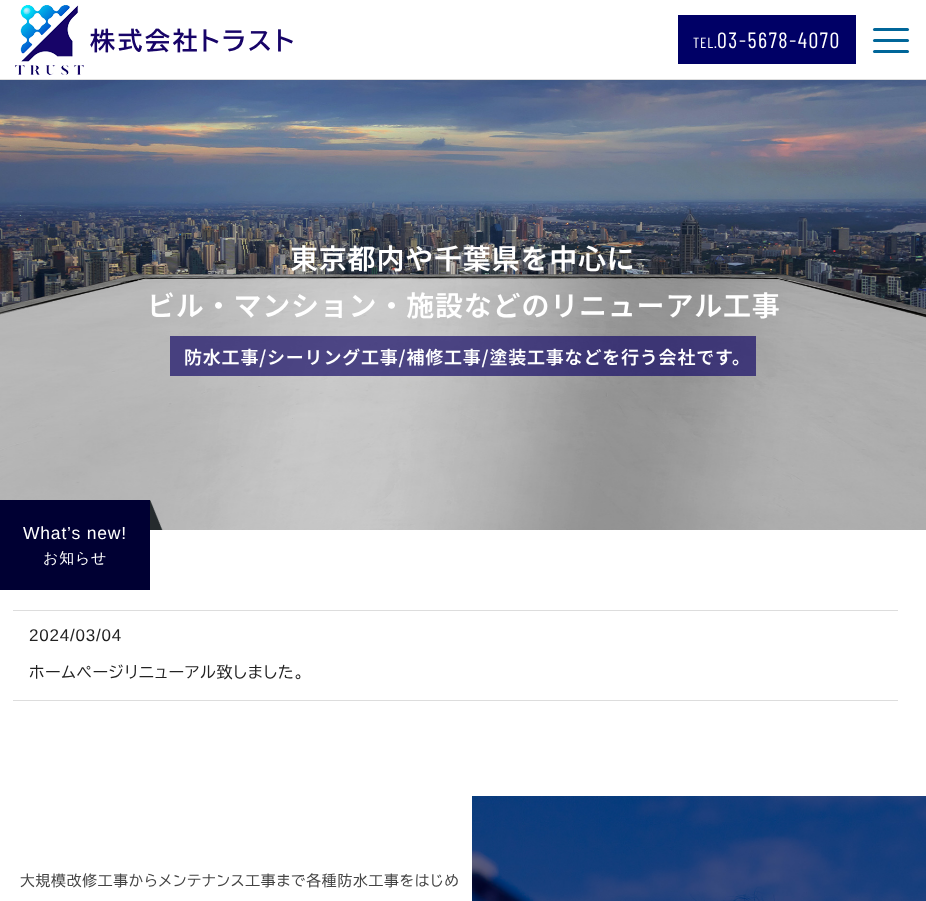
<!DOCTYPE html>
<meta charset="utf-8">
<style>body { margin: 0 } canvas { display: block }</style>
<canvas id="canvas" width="926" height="901"></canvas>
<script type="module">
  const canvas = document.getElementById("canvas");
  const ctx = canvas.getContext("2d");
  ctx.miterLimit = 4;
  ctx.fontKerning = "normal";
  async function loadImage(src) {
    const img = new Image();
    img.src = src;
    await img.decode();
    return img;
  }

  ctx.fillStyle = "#ffffff";
  ctx.fillRect(0, 0, 926, 901);
  ctx.fillStyle = "#dddddd";
  ctx.fillRect(0, 79, 926, 1);
  ctx.drawImage(await loadImage("img1.png"), 15, 5, 278, 70);
  ctx.fillStyle = "#000066";
  ctx.fillRect(678, 15, 178, 49);
  ctx.letterSpacing = "0.8px";
  ctx.font = "14.75px Barlow Condensed";
  ctx.fillStyle = "#ffffff";
  ctx.fillText("TEL.", 693, 48);
  ctx.letterSpacing = "1.6px";
  ctx.font = "22px Barlow Condensed";
  ctx.fillText("03-5678-4070", 717, 48);
  ctx.fillStyle = "#006699";
  ctx.beginPath();
  ctx.roundRect(873, 28, 36, 3, 1.5);
  ctx.fill();
  ctx.beginPath();
  ctx.roundRect(873, 39, 36, 3, 1.5);
  ctx.fill();
  ctx.beginPath();
  ctx.roundRect(873, 50, 36, 3, 1.5);
  ctx.fill();
  ctx.drawImage(await loadImage("img2.png"), 0, 80, 926, 450);
  ctx.letterSpacing = "0.8px";
  ctx.font = "100 28px Noto Sans JP";
  ctx.fillStyle = "#ffffff";
  ctx.fillText("東京都内や千葉県を中心に", 290, 269);
  ctx.fillText("ビル・マンション・施設などのリニューアル工事", 147, 316);
  ctx.fillStyle = "rgba(23, 13, 102, 0.7)";
  ctx.fillRect(170, 336, 586, 40);
  ctx.font = "100 18px Noto Sans JP";
  ctx.fillStyle = "#ffffff";
  ctx.fillText("防水工事/シーリング工事/補修工事/塗装工事などを行う会社です。", 184, 364);
  ctx.fillStyle = "#000033";
  ctx.fillRect(0, 500, 150, 90);
  ctx.drawImage(await loadImage("img3.png"), 150, 500, 13, 30);
  ctx.font = "17.5px Liberation Sans";
  ctx.fillStyle = "#ffffff";
  ctx.fillText("What’s new!", 23, 539);
  ctx.font = "500 15px WenQuanYi Zen Hei";
  ctx.fillText("お知らせ", 43, 563);
  ctx.fillStyle = "#dddddd";
  ctx.fillRect(13, 610, 885, 1);
  ctx.fillRect(13, 700, 885, 1);
  ctx.font = "17px Liberation Sans";
  ctx.fillStyle = "#222222";
  ctx.fillText("2024/03/04", 29, 641);
  ctx.font = "16px BIZ UDPGothic";
  ctx.fillText("ホームページリニューアル致しました。", 29, 678);
  ctx.drawImage(await loadImage("img4.png"), 472, 796, 454, 105);
  ctx.font = "14.75px BIZ UDPGothic";
  ctx.fillStyle = "#444444";
  ctx.fillText("大規模改修工事からメンテナンス工事まで各種防水工事をはじめ", 20, 886);
</script>
